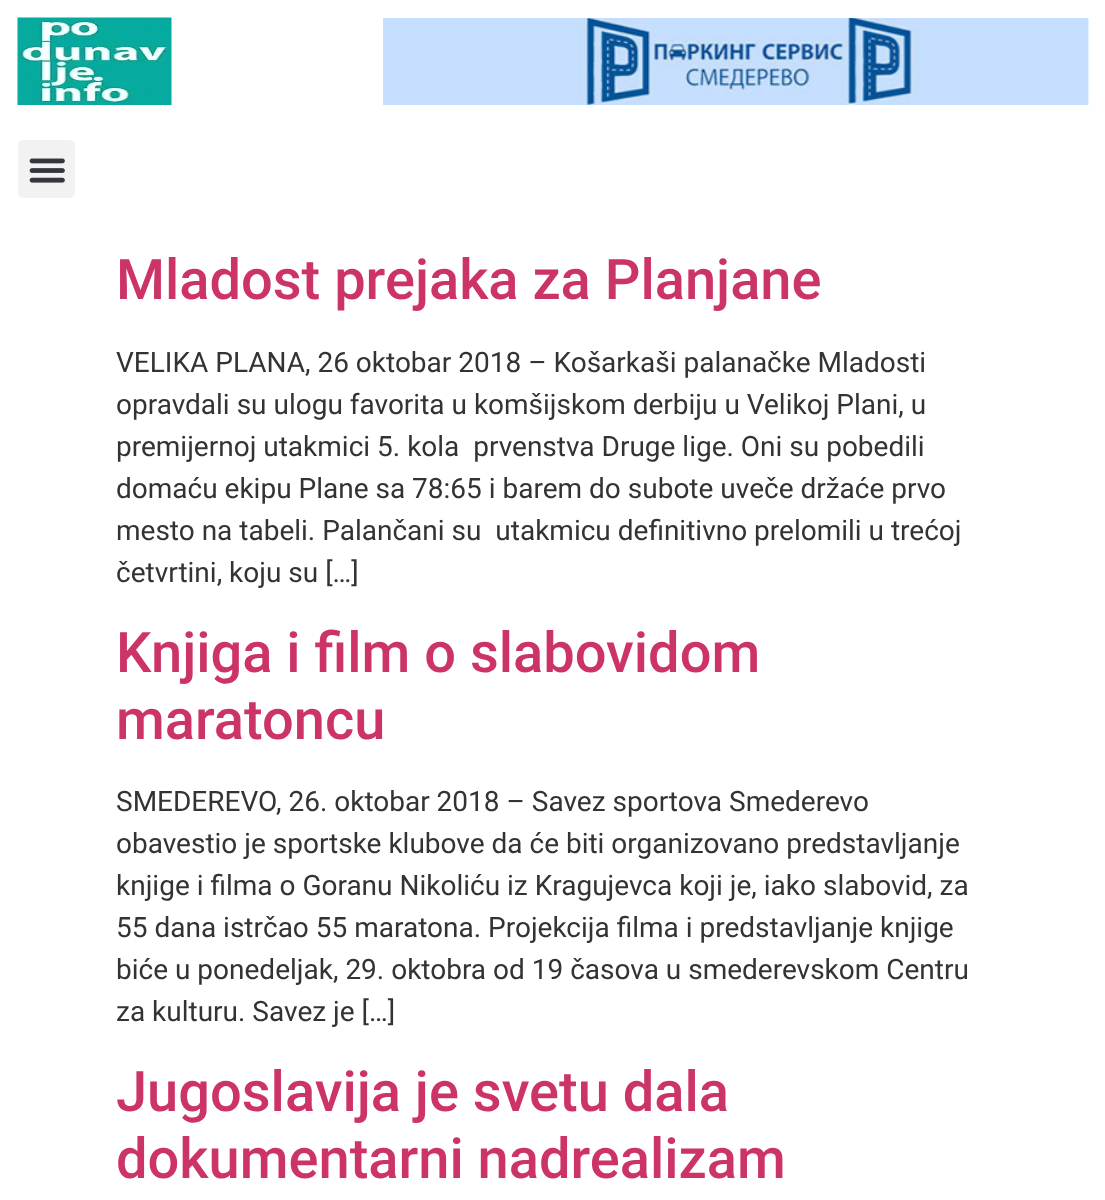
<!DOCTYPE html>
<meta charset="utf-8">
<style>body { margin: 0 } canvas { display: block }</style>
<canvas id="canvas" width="1105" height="1200"></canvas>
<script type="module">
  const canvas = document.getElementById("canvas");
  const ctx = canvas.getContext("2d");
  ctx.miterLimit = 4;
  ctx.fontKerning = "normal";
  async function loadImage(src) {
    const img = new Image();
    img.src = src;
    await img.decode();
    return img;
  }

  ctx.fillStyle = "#ffffff";
  ctx.fillRect(0, 0, 1105, 1200);
  ctx.drawImage(await loadImage("img1.png"), 17, 17, 155, 88);
  ctx.drawImage(await loadImage("img2.png"), 383, 18, 706, 87);
  ctx.fillStyle = "#f2f2f2";
  ctx.beginPath();
  ctx.roundRect(18, 140, 57, 58, 5);
  ctx.fill();
  ctx.drawImage(await loadImage("img3.png"), 29, 158, 36, 25);
  ctx.font = "500 56px Roboto";
  ctx.fillStyle = "#cc3366";
  ctx.fillText("Mladost prejaka za Planjane", 116, 299);
  ctx.font = "28px Roboto";
  ctx.fillStyle = "#333333";
  ctx.fillText("VELIKA PLANA, 26 oktobar 2018 – Košarkaši palanačke Mladosti", 116, 372);
  ctx.fillText("opravdali su ulogu favorita u komšijskom derbiju u Velikoj Plani, u", 116, 414);
  ctx.fillText("premijernoj utakmici 5. kola  prvenstva Druge lige. Oni su pobedili", 116, 456);
  ctx.fillText("domaću ekipu Plane sa 78:65 i barem do subote uveče držaće prvo", 116, 498);
  ctx.fillText("mesto na tabeli. Palančani su  utakmicu definitivno prelomili u trećoj", 116, 540);
  ctx.fillText("četvrtini, koju su […]", 116, 582);
  ctx.font = "500 56px Roboto";
  ctx.fillStyle = "#cc3366";
  ctx.fillText("Knjiga i film o slabovidom", 116, 672);
  ctx.fillText("maratoncu", 116, 739);
  ctx.font = "28px Roboto";
  ctx.fillStyle = "#333333";
  ctx.fillText("SMEDEREVO, 26. oktobar 2018 – Savez sportova Smederevo", 116, 811);
  ctx.fillText("obavestio je sportske klubove da će biti organizovano predstavljanje", 116, 853);
  ctx.fillText("knjige i filma o Goranu Nikoliću iz Kragujevca koji je, iako slabovid, za", 116, 895);
  ctx.fillText("55 dana istrčao 55 maratona. Projekcija filma i predstavljanje knjige", 116, 937);
  ctx.fillText("biće u ponedeljak, 29. oktobra od 19 časova u smederevskom Centru", 116, 979);
  ctx.fillText("za kulturu. Savez je […]", 116, 1021);
  ctx.font = "500 56px Roboto";
  ctx.fillStyle = "#cc3366";
  ctx.fillText("Jugoslavija je svetu dala", 116, 1111);
  ctx.fillText("dokumentarni nadrealizam", 116, 1178);
</script>
